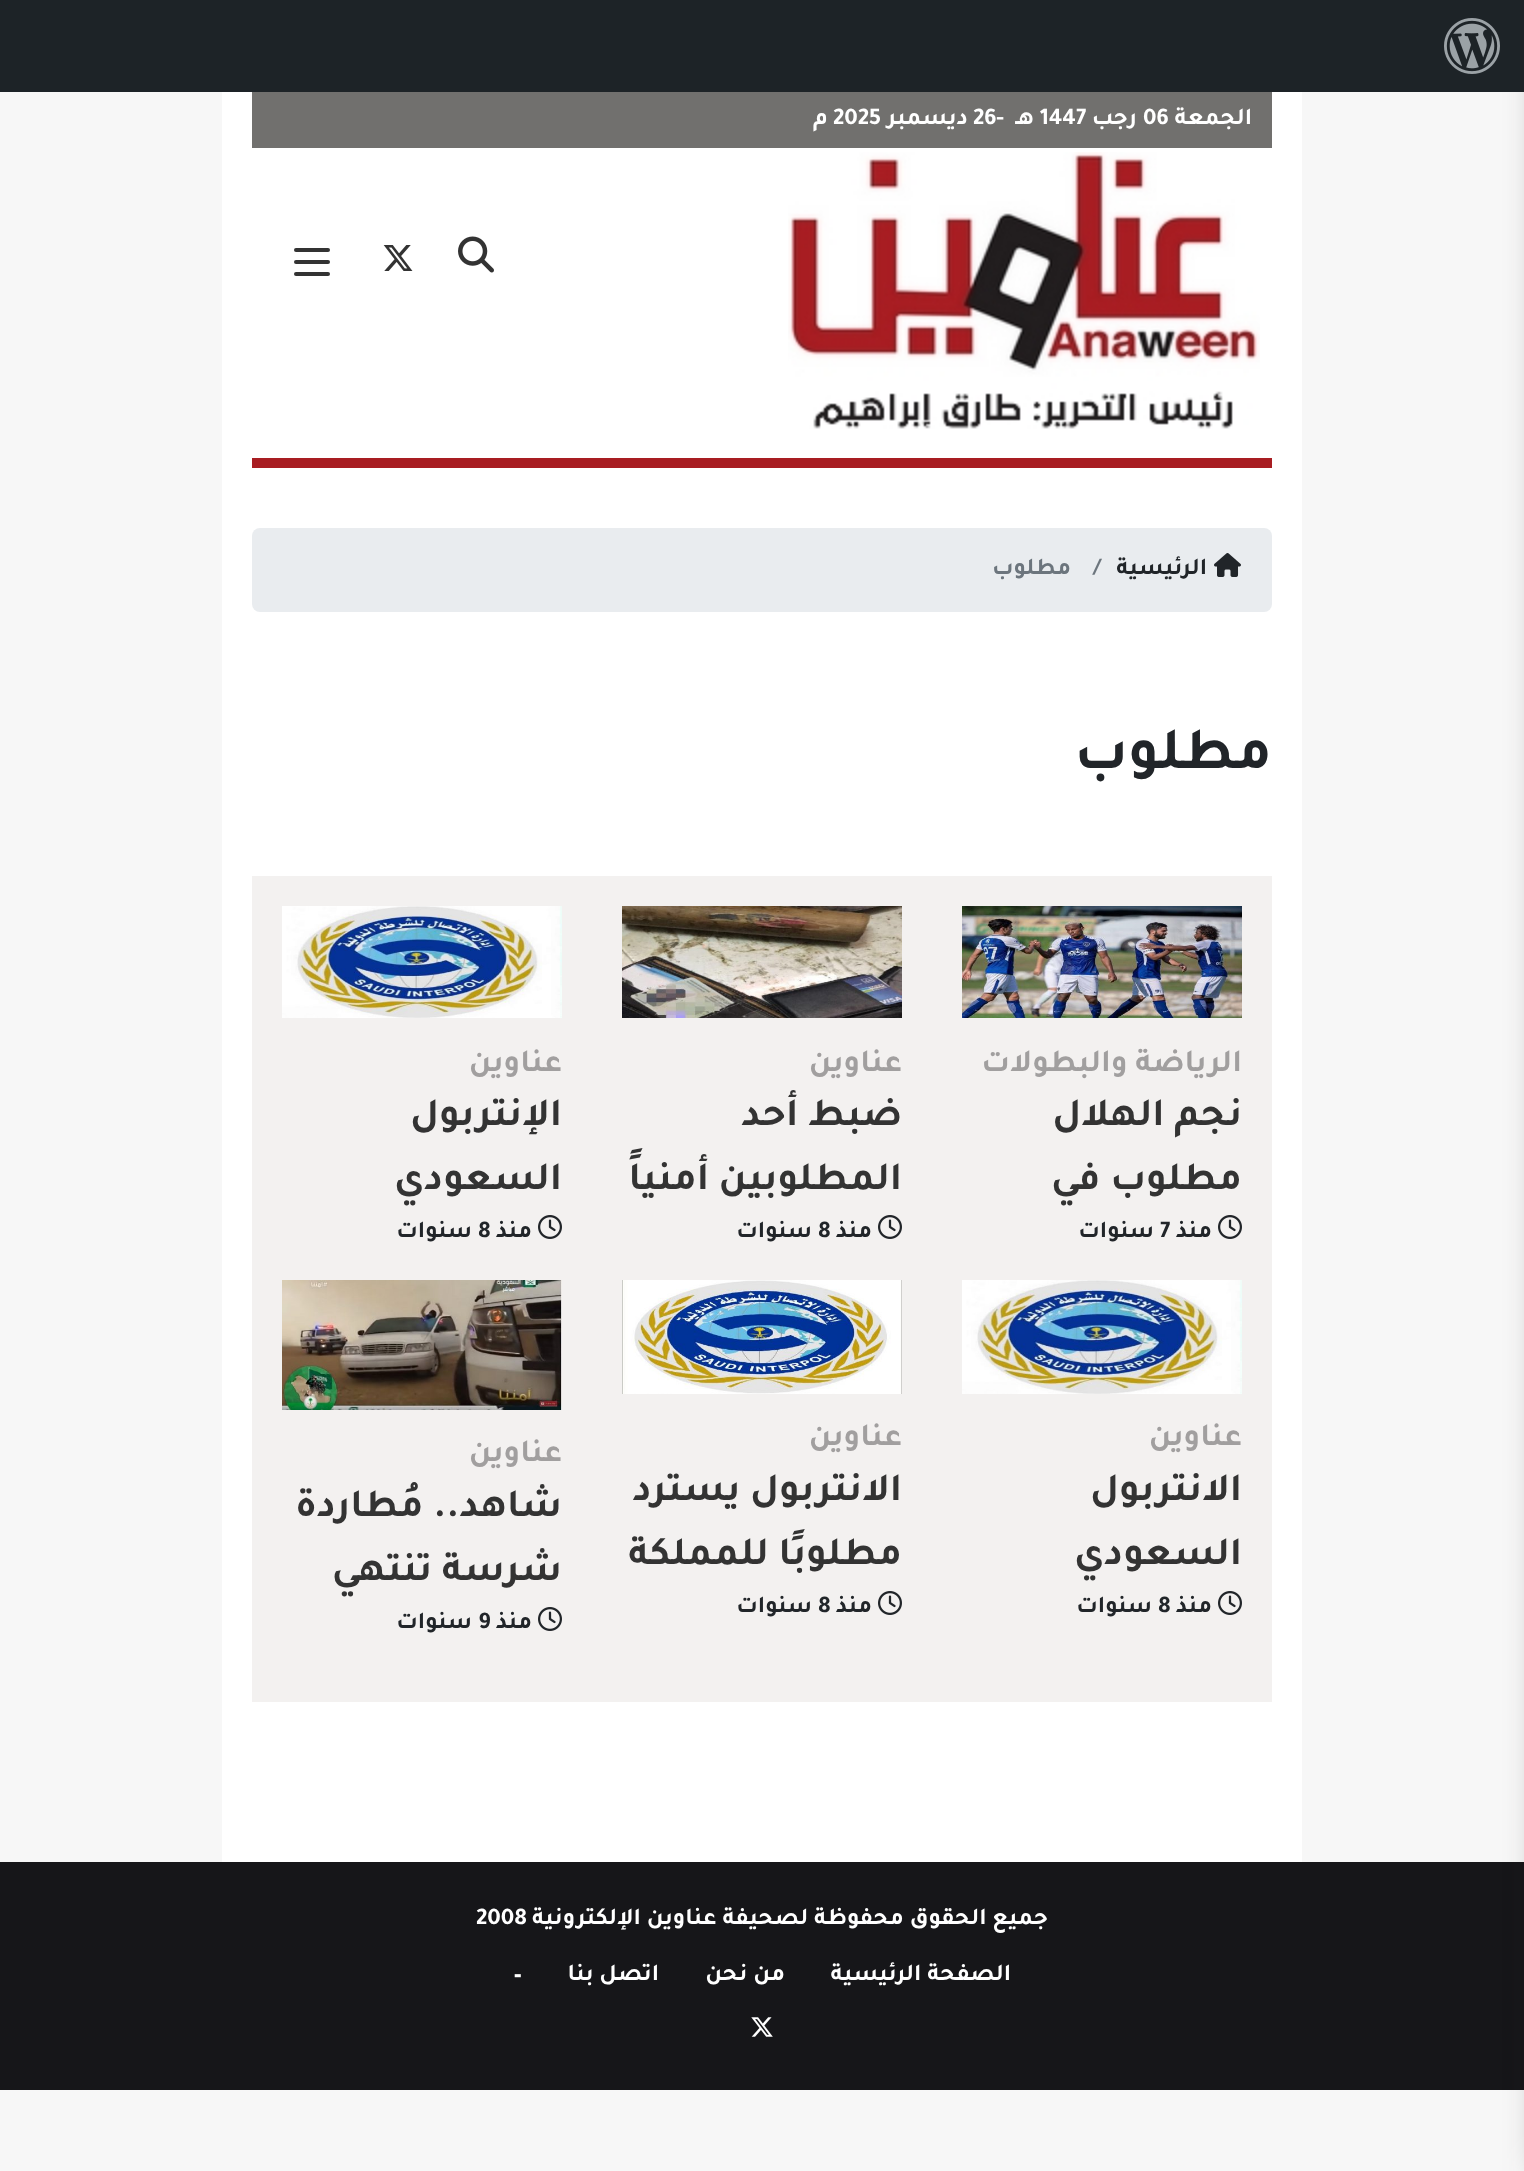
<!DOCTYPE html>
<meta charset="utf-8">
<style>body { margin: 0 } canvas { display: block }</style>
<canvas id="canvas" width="1524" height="2171"></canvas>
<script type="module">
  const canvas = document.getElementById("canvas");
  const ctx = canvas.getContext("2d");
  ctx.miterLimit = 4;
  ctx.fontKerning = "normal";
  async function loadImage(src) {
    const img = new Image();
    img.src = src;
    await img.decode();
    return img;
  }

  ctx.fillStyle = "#f7f7f7";
  ctx.fillRect(0, 0, 1524, 2171);
  ctx.fillStyle = "#161619";
  ctx.fillRect(0, 1862, 1524, 228);
  ctx.fillStyle = "rgba(33, 23, 23, 0.68)";
  ctx.filter = "blur(20px)";
  ctx.beginPath();
  ctx.rect(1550, 0, 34, 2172);
  ctx.fill();
  ctx.filter = "none";
  ctx.fillStyle = "#1d2327";
  ctx.fillRect(0, 0, 1524, 92);
  ctx.drawImage(await loadImage("img1.png"), 1444, 18, 56, 56);
  ctx.fillStyle = "#ffffff";
  ctx.fillRect(222, 92, 1080, 1770);
  ctx.fillStyle = "#71706e";
  ctx.fillRect(252, 92, 1020, 56);
  ctx.direction = "rtl";
  ctx.font = "bold 24px Tajawal";
  ctx.fillStyle = "#ffffff";
  ctx.fillText("الجمعة", 1252, 124);
  ctx.direction = "ltr";
  ctx.fillText("06", 1143, 124);
  ctx.direction = "rtl";
  ctx.fillText("رجب", 1137, 124);
  ctx.direction = "ltr";
  ctx.fillText("1447", 1040, 124);
  ctx.direction = "rtl";
  ctx.fillText("هـ", 1034, 124);
  ctx.direction = "ltr";
  ctx.fillText("26-", 973, 124);
  ctx.direction = "rtl";
  ctx.fillText("ديسمبر", 968, 124);
  ctx.direction = "ltr";
  ctx.fillText("2025", 833, 124);
  ctx.direction = "rtl";
  ctx.fillText("م", 828, 124);
  ctx.fillStyle = "#a81d22";
  ctx.fillRect(252, 458, 1020, 10);
  ctx.drawImage(await loadImage("img2.png"), 788, 152, 472, 277);
  ctx.drawImage(await loadImage("img3.png"), 458, 236, 36, 37);
  ctx.drawImage(await loadImage("img4.png"), 383, 245, 30, 26);
  ctx.fillStyle = "#333333";
  ctx.beginPath();
  ctx.roundRect(294, 248, 36, 4, 2);
  ctx.fill();
  ctx.beginPath();
  ctx.roundRect(294, 260, 36, 4, 2);
  ctx.fill();
  ctx.beginPath();
  ctx.roundRect(294, 272, 36, 4, 2);
  ctx.fill();
  ctx.fillStyle = "#e9ecef";
  ctx.beginPath();
  ctx.roundRect(252, 528, 1020, 84, 8);
  ctx.fill();
  ctx.drawImage(await loadImage("img5.png"), 1214, 553, 27, 24);
  ctx.fillStyle = "#212529";
  ctx.fillText("الرئيسية", 1207, 574);
  ctx.direction = "ltr";
  ctx.fillStyle = "#6c757d";
  ctx.fillText("/", 1093, 574);
  ctx.direction = "rtl";
  ctx.fillText("مطلوب", 1071, 574);
  ctx.font = "bold 60px Tajawal";
  ctx.fillStyle = "#212529";
  ctx.fillText("مطلوب", 1272, 768);
  ctx.fillStyle = "#f3f1f0";
  ctx.fillRect(252, 876, 1020, 826);
  ctx.drawImage(await loadImage("img6.png"), 962, 906, 280, 112);
  ctx.font = "bold 32px Tajawal";
  ctx.fillStyle = "#a19f9f";
  ctx.fillText("الرياضة والبطولات", 1242, 1071);
  ctx.font = "bold 40px Tajawal";
  ctx.fillStyle = "#333333";
  ctx.fillText("نجم الهلال", 1242, 1125);
  ctx.fillText("مطلوب في", 1242, 1189);
  ctx.drawImage(await loadImage("img7.png"), 1218, 1215, 24, 24);
  ctx.font = "bold 24px Tajawal";
  ctx.fillStyle = "#212529";
  ctx.fillText("منذ", 1212, 1237);
  ctx.direction = "ltr";
  ctx.fillText("7", 1160, 1237);
  ctx.direction = "rtl";
  ctx.fillText("سنوات", 1154, 1237);
  ctx.drawImage(await loadImage("img8.png"), 622, 906, 280, 112);
  ctx.font = "bold 32px Tajawal";
  ctx.fillStyle = "#a19f9f";
  ctx.fillText("عناوين", 902, 1071);
  ctx.font = "bold 40px Tajawal";
  ctx.fillStyle = "#333333";
  ctx.fillText("ضبط أحد", 902, 1125);
  ctx.fillText("المطلوبين أمنياً", 902, 1189);
  ctx.drawImage(await loadImage("img7.png"), 878, 1215, 24, 24);
  ctx.font = "bold 24px Tajawal";
  ctx.fillStyle = "#212529";
  ctx.fillText("منذ", 872, 1237);
  ctx.direction = "ltr";
  ctx.fillText("8", 818, 1237);
  ctx.direction = "rtl";
  ctx.fillText("سنوات", 812, 1237);
  ctx.drawImage(await loadImage("img9.png"), 282, 906, 280, 112);
  ctx.font = "bold 32px Tajawal";
  ctx.fillStyle = "#a19f9f";
  ctx.fillText("عناوين", 562, 1071);
  ctx.font = "bold 40px Tajawal";
  ctx.fillStyle = "#333333";
  ctx.fillText("الإنتربول", 562, 1125);
  ctx.fillText("السعودي", 562, 1189);
  ctx.drawImage(await loadImage("img7.png"), 538, 1215, 24, 24);
  ctx.font = "bold 24px Tajawal";
  ctx.fillStyle = "#212529";
  ctx.fillText("منذ", 532, 1237);
  ctx.direction = "ltr";
  ctx.fillText("8", 478, 1237);
  ctx.direction = "rtl";
  ctx.fillText("سنوات", 472, 1237);
  ctx.drawImage(await loadImage("img10.png"), 962, 1280, 280, 114);
  ctx.font = "bold 32px Tajawal";
  ctx.fillStyle = "#a19f9f";
  ctx.fillText("عناوين", 1242, 1445);
  ctx.font = "bold 40px Tajawal";
  ctx.fillStyle = "#333333";
  ctx.fillText("الانتربول", 1242, 1500);
  ctx.fillText("السعودي", 1242, 1564);
  ctx.drawImage(await loadImage("img7.png"), 1218, 1591, 24, 24);
  ctx.font = "bold 24px Tajawal";
  ctx.fillStyle = "#212529";
  ctx.fillText("منذ", 1212, 1612);
  ctx.direction = "ltr";
  ctx.fillText("8", 1158, 1612);
  ctx.direction = "rtl";
  ctx.fillText("سنوات", 1152, 1612);
  ctx.drawImage(await loadImage("img11.png"), 622, 1280, 280, 114);
  ctx.font = "bold 32px Tajawal";
  ctx.fillStyle = "#a19f9f";
  ctx.fillText("عناوين", 902, 1445);
  ctx.font = "bold 40px Tajawal";
  ctx.fillStyle = "#333333";
  ctx.fillText("الانتربول يسترد", 902, 1500);
  ctx.fillText("مطلوبًا للمملكة", 902, 1564);
  ctx.drawImage(await loadImage("img7.png"), 878, 1591, 24, 24);
  ctx.font = "bold 24px Tajawal";
  ctx.fillStyle = "#212529";
  ctx.fillText("منذ", 872, 1612);
  ctx.direction = "ltr";
  ctx.fillText("8", 818, 1612);
  ctx.direction = "rtl";
  ctx.fillText("سنوات", 812, 1612);
  ctx.drawImage(await loadImage("img12.png"), 282, 1280, 280, 130);
  ctx.font = "bold 32px Tajawal";
  ctx.fillStyle = "#a19f9f";
  ctx.fillText("عناوين", 562, 1461);
  ctx.font = "bold 40px Tajawal";
  ctx.fillStyle = "#333333";
  ctx.fillText("شاهد.. مُطاردة", 562, 1516);
  ctx.fillText("شرسة تنتهي", 562, 1580);
  ctx.drawImage(await loadImage("img7.png"), 538, 1607, 24, 24);
  ctx.font = "bold 24px Tajawal";
  ctx.fillStyle = "#212529";
  ctx.fillText("منذ", 532, 1628);
  ctx.direction = "ltr";
  ctx.fillText("9", 478, 1628);
  ctx.direction = "rtl";
  ctx.fillText("سنوات", 472, 1628);
  ctx.fillStyle = "#ffffff";
  ctx.fillText("جميع الحقوق محفوظة لصحيفة عناوين الإلكترونية", 1048, 1924);
  ctx.direction = "ltr";
  ctx.fillText("2008", 476, 1924);
  ctx.direction = "rtl";
  ctx.fillText("الصفحة الرئيسية", 1011, 1980);
  ctx.fillText("من نحن", 785, 1980);
  ctx.fillText("اتصل بنا", 659, 1980);
  ctx.direction = "ltr";
  ctx.fillText("–", 513, 1980);
  ctx.drawImage(await loadImage("img13.png"), 751, 2017, 22, 20);
</script>
